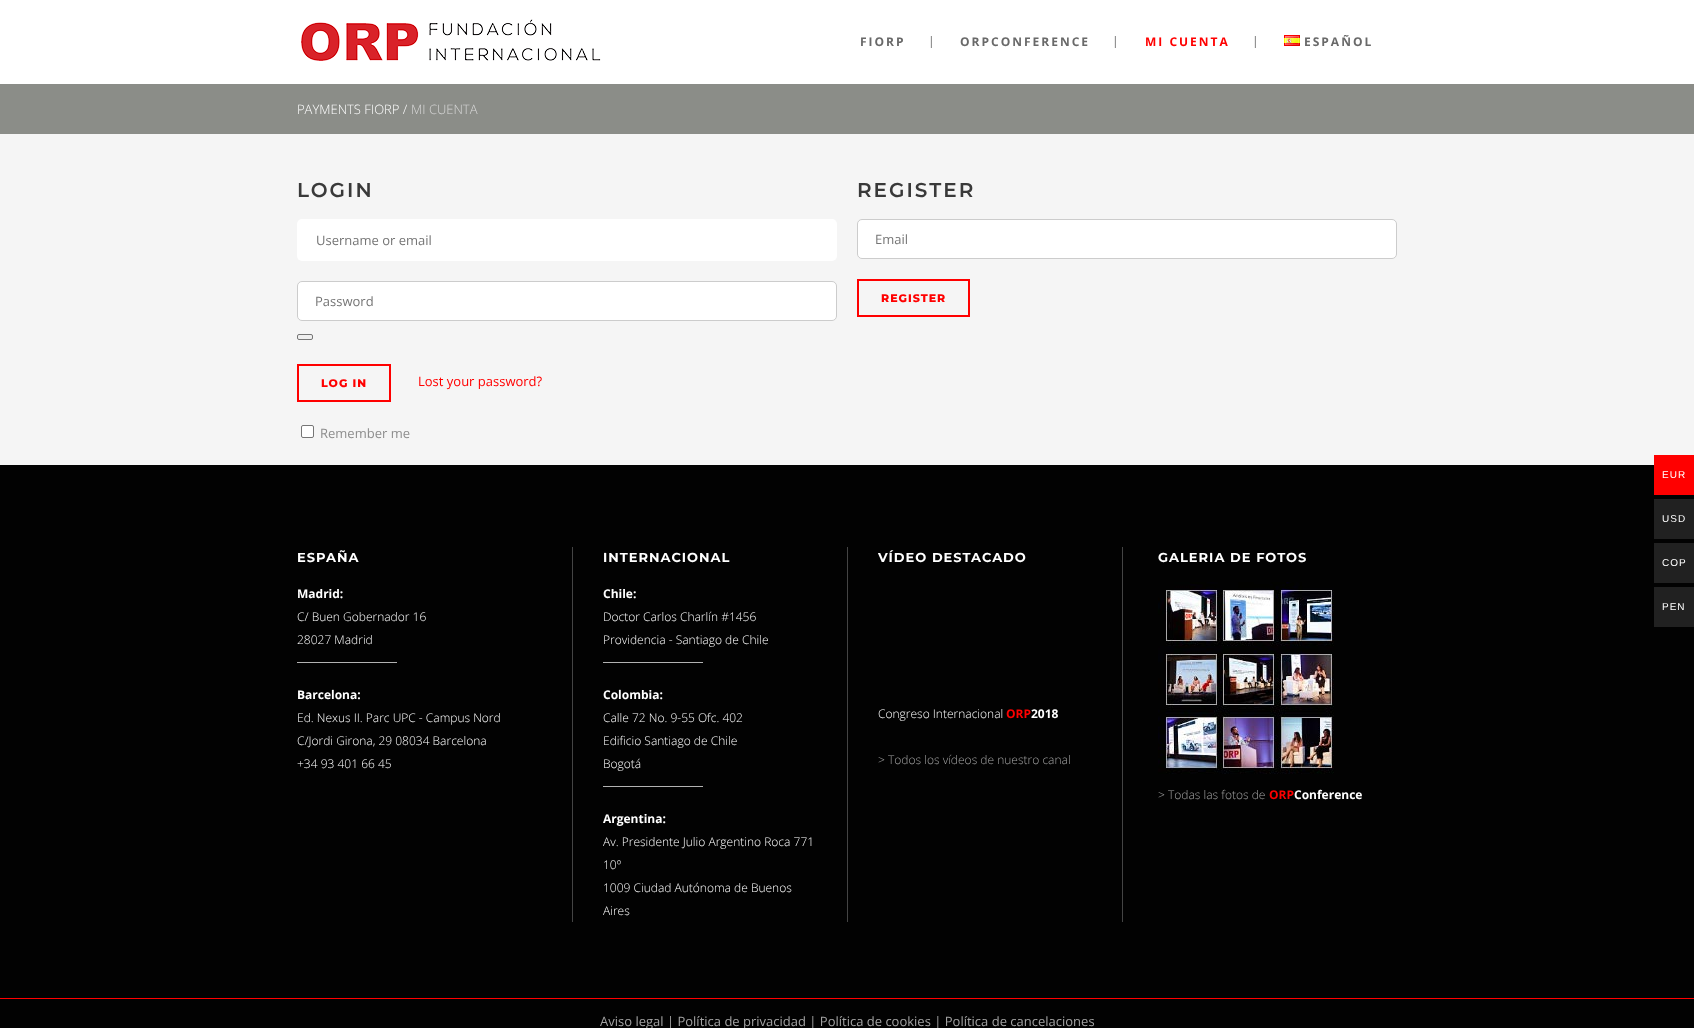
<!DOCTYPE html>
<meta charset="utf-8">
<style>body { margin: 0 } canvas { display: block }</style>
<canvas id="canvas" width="1694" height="1028"></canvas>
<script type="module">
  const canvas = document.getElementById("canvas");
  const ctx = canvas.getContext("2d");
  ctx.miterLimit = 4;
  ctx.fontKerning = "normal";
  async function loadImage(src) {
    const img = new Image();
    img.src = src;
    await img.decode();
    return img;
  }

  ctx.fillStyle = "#f5f5f5";
  ctx.fillRect(0, 0, 1694, 1028);
  ctx.fillStyle = "#ffffff";
  ctx.fillRect(0, 0, 1694, 84);
  ctx.drawImage(await loadImage("img1.png"), 301, 19, 300, 42);
  ctx.letterSpacing = "2px";
  ctx.font = "bold 12px Open Sans";
  ctx.fillStyle = "#696969";
  ctx.fillText("FIORP", 860, 46);
  ctx.letterSpacing = "0px";
  ctx.font = "12px Open Sans";
  ctx.fillText("|", 928, 45);
  ctx.letterSpacing = "2px";
  ctx.font = "bold 12px Open Sans";
  ctx.fillText("ORPCONFERENCE", 960, 46);
  ctx.letterSpacing = "0px";
  ctx.font = "12px Open Sans";
  ctx.fillText("|", 1112, 45);
  ctx.letterSpacing = "2px";
  ctx.font = "bold 12px Open Sans";
  ctx.fillStyle = "#ff0000";
  ctx.fillText("MI CUENTA", 1145, 46);
  ctx.letterSpacing = "0px";
  ctx.font = "12px Open Sans";
  ctx.fillStyle = "#696969";
  ctx.fillText("|", 1252, 45);
  ctx.drawImage(await loadImage("img2.png"), 1284, 35, 16, 11);
  ctx.letterSpacing = "2px";
  ctx.font = "bold 12px Open Sans";
  ctx.fillText("ESPAÑOL", 1304, 46);
  ctx.fillStyle = "#8b8d88";
  ctx.fillRect(0, 84, 1694, 50);
  ctx.letterSpacing = "0px";
  ctx.font = "300 13px Open Sans";
  ctx.fillStyle = "#ffffff";
  ctx.fillText("PAYMENTS FIORP /", 297, 114);
  ctx.fillStyle = "#d8d8d8";
  ctx.fillText("MI CUENTA", 411, 114);
  ctx.letterSpacing = "2px";
  ctx.font = "600 20px Montserrat";
  ctx.fillStyle = "#393939";
  ctx.fillText("LOGIN", 297, 197);
  ctx.fillStyle = "#ffffff";
  ctx.beginPath();
  ctx.roundRect(297, 219, 540, 42, 5);
  ctx.fill();
  ctx.letterSpacing = "0px";
  ctx.font = "13px Open Sans";
  ctx.fillStyle = "#757575";
  ctx.fillText("Username or email", 316, 245);
  ctx.fillStyle = "#ffffff";
  ctx.beginPath();
  ctx.roundRect(297.5, 281.5, 539, 39, 4.5);
  ctx.fill();
  ctx.strokeStyle = "#cccccc";
  ctx.stroke();
  ctx.fillStyle = "#757575";
  ctx.fillText("Password", 315, 306);
  ctx.fillStyle = "#efefef";
  ctx.beginPath();
  ctx.roundRect(297.5, 334.5, 15, 5, 1.5);
  ctx.fill();
  ctx.strokeStyle = "#767676";
  ctx.stroke();
  ctx.strokeStyle = "#ff0000";
  ctx.lineWidth = 2;
  ctx.strokeRect(298, 365, 92, 36);
  ctx.letterSpacing = "1px";
  ctx.font = "800 11px Montserrat";
  ctx.fillStyle = "#ff0000";
  ctx.fillText("LOG IN", 321, 387);
  ctx.letterSpacing = "0px";
  ctx.font = "13px Open Sans";
  ctx.fillText("Lost your password?", 418, 386);
  ctx.fillStyle = "#ffffff";
  ctx.beginPath();
  ctx.roundRect(301.5, 425.5, 12, 12, 1.5);
  ctx.fill();
  ctx.strokeStyle = "#767676";
  ctx.lineWidth = 1;
  ctx.stroke();
  ctx.fillStyle = "#8d8d8d";
  ctx.fillText("Remember me", 320, 438);
  ctx.letterSpacing = "2px";
  ctx.font = "600 20px Montserrat";
  ctx.fillStyle = "#393939";
  ctx.fillText("REGISTER", 857, 197);
  ctx.fillStyle = "#ffffff";
  ctx.beginPath();
  ctx.roundRect(857.5, 219.5, 539, 39, 4.5);
  ctx.fill();
  ctx.strokeStyle = "#cccccc";
  ctx.stroke();
  ctx.letterSpacing = "0px";
  ctx.font = "13px Open Sans";
  ctx.fillStyle = "#757575";
  ctx.fillText("Email", 875, 244);
  ctx.strokeStyle = "#ff0000";
  ctx.lineWidth = 2;
  ctx.strokeRect(858, 280, 111, 36);
  ctx.letterSpacing = "1px";
  ctx.font = "800 11px Montserrat";
  ctx.fillStyle = "#ff0000";
  ctx.fillText("REGISTER", 881, 302);
  ctx.fillStyle = "#020202";
  ctx.fillRect(0, 465, 1694, 533);
  ctx.font = "bold 13px Montserrat";
  ctx.fillStyle = "#ffffff";
  ctx.fillText("ESPAÑA", 297, 562);
  ctx.letterSpacing = "0px";
  ctx.font = "bold 12px Open Sans";
  ctx.fillText("Madrid:", 297, 598);
  ctx.font = "300 12px Open Sans";
  ctx.fillText("C/ Buen Gobernador 16", 297, 621);
  ctx.fillText("28027 Madrid", 297, 644);
  ctx.fillStyle = "#b2b2b2";
  ctx.fillRect(297, 662, 100, 1);
  ctx.font = "bold 12px Open Sans";
  ctx.fillStyle = "#ffffff";
  ctx.fillText("Barcelona:", 297, 699);
  ctx.font = "300 12px Open Sans";
  ctx.fillText("Ed. Nexus II. Parc UPC - Campus Nord", 297, 722);
  ctx.fillText("C/Jordi Girona, 29 08034 Barcelona", 297, 745);
  ctx.fillText("+34 93 401 66 45", 297, 768);
  ctx.fillStyle = "#444444";
  ctx.fillRect(572, 547, 1, 375);
  ctx.letterSpacing = "1px";
  ctx.font = "bold 13px Montserrat";
  ctx.fillStyle = "#ffffff";
  ctx.fillText("INTERNACIONAL", 603, 562);
  ctx.letterSpacing = "0px";
  ctx.font = "bold 12px Open Sans";
  ctx.fillText("Chile:", 603, 598);
  ctx.font = "300 12px Open Sans";
  ctx.fillText("Doctor Carlos Charlín #1456", 603, 621);
  ctx.fillText("Providencia - Santiago de Chile", 603, 644);
  ctx.fillStyle = "#b2b2b2";
  ctx.fillRect(603, 662, 100, 1);
  ctx.font = "bold 12px Open Sans";
  ctx.fillStyle = "#ffffff";
  ctx.fillText("Colombia:", 603, 699);
  ctx.font = "300 12px Open Sans";
  ctx.fillText("Calle 72 No. 9-55 Ofc. 402", 603, 722);
  ctx.fillText("Edificio Santiago de Chile", 603, 745);
  ctx.fillText("Bogotá", 603, 768);
  ctx.fillStyle = "#b2b2b2";
  ctx.fillRect(603, 786, 100, 1);
  ctx.font = "bold 12px Open Sans";
  ctx.fillStyle = "#ffffff";
  ctx.fillText("Argentina:", 603, 823);
  ctx.font = "300 12px Open Sans";
  ctx.fillText("Av. Presidente Julio Argentino Roca 771", 603, 846);
  ctx.fillText("10º", 603, 869);
  ctx.fillText("1009 Ciudad Autónoma de Buenos", 603, 892);
  ctx.fillText("Aires", 603, 915);
  ctx.fillStyle = "#444444";
  ctx.fillRect(847, 547, 1, 375);
  ctx.letterSpacing = "1px";
  ctx.font = "bold 13px Montserrat";
  ctx.fillStyle = "#ffffff";
  ctx.fillText("VÍDEO DESTACADO", 878, 562);
  ctx.letterSpacing = "0px";
  ctx.font = "300 12px Open Sans";
  ctx.fillText("Congreso Internacional", 878, 718);
  ctx.font = "bold 12px Open Sans";
  ctx.fillStyle = "#ff0000";
  ctx.fillText("ORP", 1006, 718);
  ctx.fillStyle = "#ffffff";
  ctx.fillText("2018", 1031, 718);
  ctx.font = "300 12px Open Sans";
  ctx.fillStyle = "#a3a3a3";
  ctx.fillText("> Todos los vídeos de nuestro canal", 878, 764);
  ctx.fillStyle = "#444444";
  ctx.fillRect(1122, 547, 1, 375);
  ctx.letterSpacing = "1px";
  ctx.font = "bold 13px Montserrat";
  ctx.fillStyle = "#ffffff";
  ctx.fillText("GALERIA DE FOTOS", 1158, 562);
  ctx.drawImage(await loadImage("img3.png"), 1158, 582, 176, 192);
  ctx.letterSpacing = "0px";
  ctx.font = "300 12px Open Sans";
  ctx.fillStyle = "#a3a3a3";
  ctx.fillText("> Todas las fotos de", 1158, 799);
  ctx.font = "bold 12px Open Sans";
  ctx.fillStyle = "#ff0000";
  ctx.fillText("ORP", 1269, 799);
  ctx.fillStyle = "#ffffff";
  ctx.fillText("Conference", 1294, 799);
  ctx.fillStyle = "#020202";
  ctx.fillRect(0, 999, 1694, 29);
  ctx.fillStyle = "#ff0000";
  ctx.fillRect(0, 998, 1694, 1);
  ctx.font = "13px Open Sans";
  ctx.fillStyle = "#a3a3a3";
  ctx.fillText("Aviso legal | Política de privacidad | Política de cookies | Política de cancelaciones", 600, 1026);
  ctx.fillStyle = "#ff0000";
  ctx.fillRect(1654, 455, 40, 40);
  ctx.letterSpacing = "1px";
  ctx.font = "10px Liberation Sans";
  ctx.fillStyle = "#ffffff";
  ctx.fillText("EUR", 1662, 478);
  ctx.fillStyle = "#212121";
  ctx.fillRect(1654, 499, 40, 40);
  ctx.fillStyle = "#ffffff";
  ctx.fillText("USD", 1662, 522);
  ctx.fillStyle = "#212121";
  ctx.fillRect(1654, 543, 40, 40);
  ctx.fillStyle = "#ffffff";
  ctx.fillText("COP", 1662, 566);
  ctx.fillStyle = "#212121";
  ctx.fillRect(1654, 587, 40, 40);
  ctx.fillStyle = "#ffffff";
  ctx.fillText("PEN", 1662, 610);
</script>
